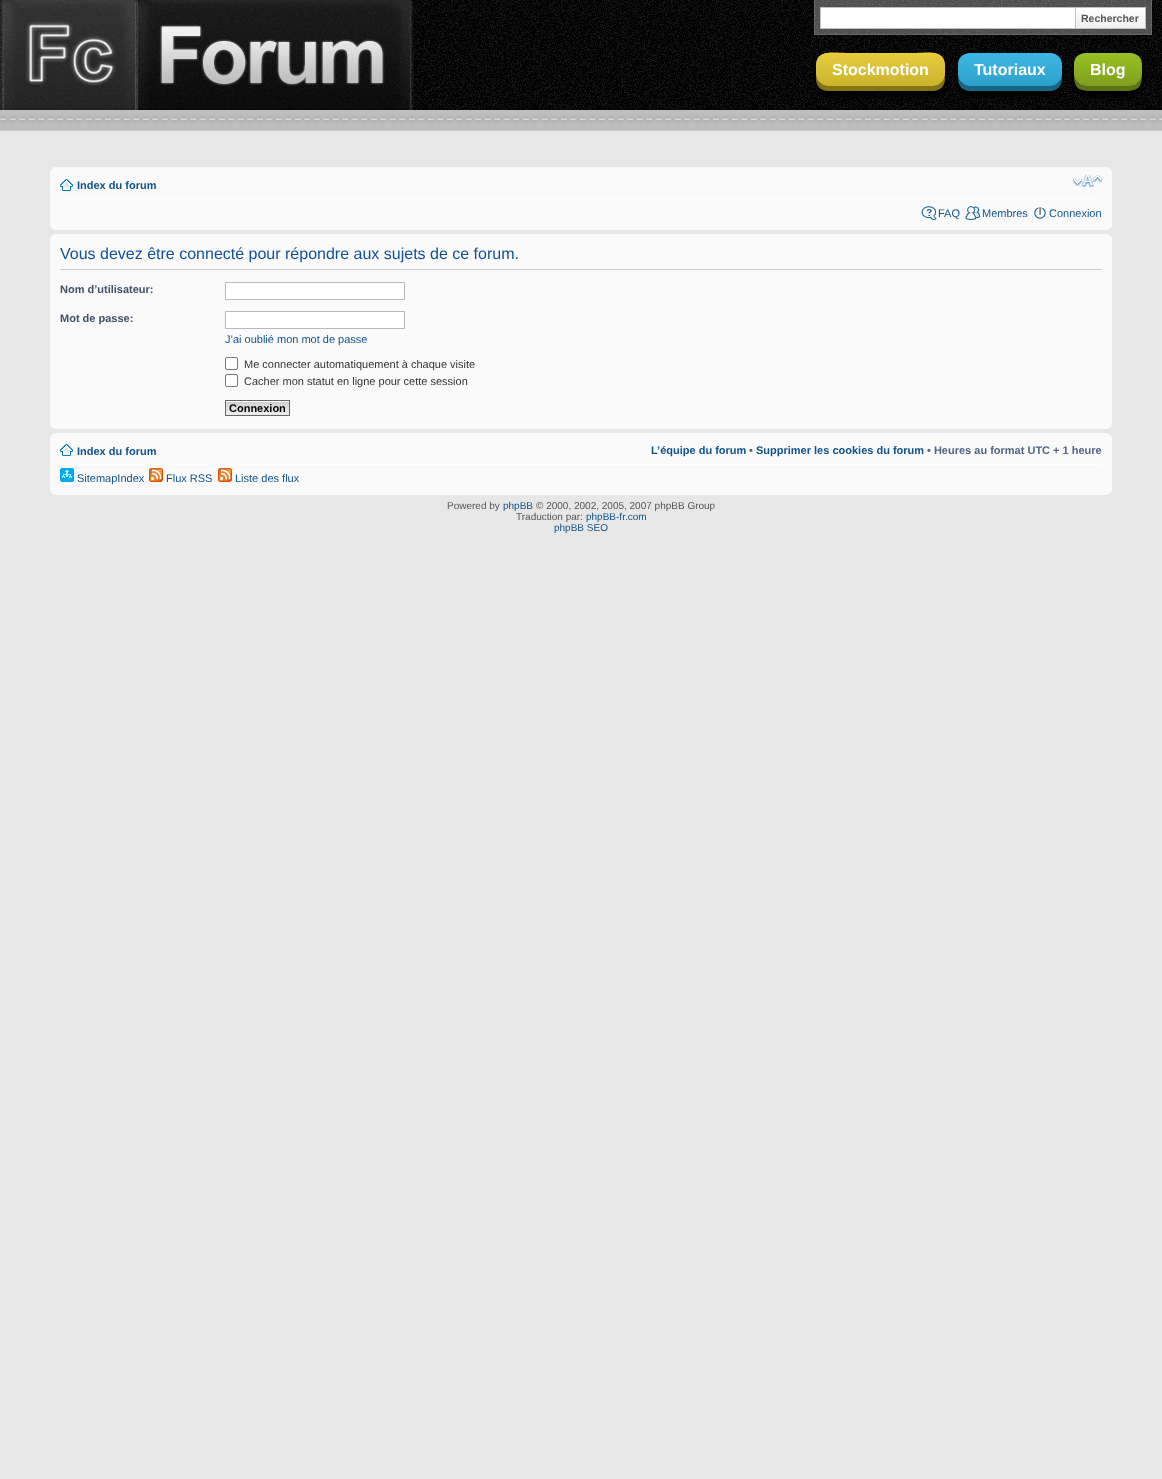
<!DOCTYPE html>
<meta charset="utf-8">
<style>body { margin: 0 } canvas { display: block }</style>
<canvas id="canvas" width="1162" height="1479"></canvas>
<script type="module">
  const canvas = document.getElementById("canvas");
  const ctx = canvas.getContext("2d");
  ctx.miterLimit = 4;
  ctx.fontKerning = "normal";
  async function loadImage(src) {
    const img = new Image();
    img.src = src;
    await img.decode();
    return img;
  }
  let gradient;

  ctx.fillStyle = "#e7e7e7";
  ctx.fillRect(0, 0, 1162, 1479);
  ctx.drawImage(await loadImage("img1.png"), 414, 0, 748, 110);
  ctx.drawImage(await loadImage("img2.png"), 0, 0, 414, 110);
  ctx.fillStyle = "rgba(255, 255, 255, 0.1)";
  ctx.fillRect(0, 0, 136, 110);
  ctx.fillStyle = "rgba(255, 255, 255, 0.3)";
  ctx.fillRect(815, 0, 336, 34);
  ctx.fillStyle = "#666666";
  ctx.fillRect(1151, 0, 1, 35);
  ctx.fillRect(814, 34, 338, 1);
  ctx.fillRect(814, 0, 1, 35);
  ctx.fillStyle = "#ffffff";
  ctx.beginPath();
  ctx.rect(820.5, 7.5, 255, 21);
  ctx.fill();
  ctx.strokeStyle = "#c0c0c0";
  ctx.stroke();
  gradient = ctx.createLinearGradient(1111, 8, 1111, 28);
  gradient.addColorStop(0, "#ffffff");
  gradient.addColorStop(1, "#f0f0f0");
  ctx.fillStyle = gradient;
  ctx.fillRect(1076, 8, 69, 20);
  ctx.fillStyle = "#c0c0c0";
  ctx.fillRect(1076, 7, 70, 1);
  ctx.fillRect(1145, 7, 1, 22);
  ctx.fillRect(1076, 28, 70, 1);
  ctx.font = "bold 10.5px Liberation Sans";
  ctx.fillStyle = "#555555";
  ctx.fillText("Rechercher", 1081, 22);
  ctx.fillStyle = "#000000";
  ctx.filter = "blur(2.5px)";
  ctx.beginPath();
  ctx.roundRect(816, 63, 129, 33, 12);
  ctx.fill();
  ctx.filter = "none";
  ctx.fillStyle = "#857414";
  ctx.beginPath();
  ctx.moveTo(816, 74);
  ctx.lineTo(816, 79);
  ctx.bezierCurveTo(816, 86, 821, 91, 828, 91);
  ctx.lineTo(933, 91);
  ctx.bezierCurveTo(940, 91, 945, 86, 945, 79);
  ctx.lineTo(945, 74);
  ctx.bezierCurveTo(945, 81, 940, 86, 933, 86);
  ctx.lineTo(828, 86);
  ctx.bezierCurveTo(821, 86, 816, 81, 816, 74);
  ctx.closePath();
  ctx.fill();
  gradient = ctx.createLinearGradient(881, 53, 881, 86);
  gradient.addColorStop(0, "#e6cc3e");
  gradient.addColorStop(1, "#cab32d");
  ctx.fillStyle = gradient;
  ctx.beginPath();
  ctx.roundRect(816, 53, 129, 33, 12);
  ctx.fill();
  ctx.fillStyle = "#eccf2b";
  ctx.beginPath();
  ctx.moveTo(828, 54);
  ctx.lineTo(933, 54);
  ctx.bezierCurveTo(940, 54, 945, 59, 945, 66);
  ctx.bezierCurveTo(945, 49, 927, 53, 916, 53);
  ctx.lineTo(846, 53);
  ctx.bezierCurveTo(834, 53, 816, 49, 816, 66);
  ctx.bezierCurveTo(816, 59, 821, 54, 828, 54);
  ctx.closePath();
  ctx.fill();
  ctx.font = "bold 16px Liberation Sans";
  ctx.fillStyle = "#ffffff";
  ctx.fillText("Stockmotion", 832, 75);
  ctx.fillStyle = "#000000";
  ctx.filter = "blur(2.5px)";
  ctx.beginPath();
  ctx.roundRect(958, 63, 104, 33, 12);
  ctx.fill();
  ctx.filter = "none";
  ctx.fillStyle = "#156785";
  ctx.beginPath();
  ctx.moveTo(958, 74);
  ctx.lineTo(958, 79);
  ctx.bezierCurveTo(958, 86, 963, 91, 970, 91);
  ctx.lineTo(1050, 91);
  ctx.bezierCurveTo(1057, 91, 1062, 86, 1062, 79);
  ctx.lineTo(1062, 74);
  ctx.bezierCurveTo(1062, 81, 1057, 86, 1050, 86);
  ctx.lineTo(970, 86);
  ctx.bezierCurveTo(963, 86, 958, 81, 958, 74);
  ctx.closePath();
  ctx.fill();
  gradient = ctx.createLinearGradient(1010, 53, 1010, 86);
  gradient.addColorStop(0, "#3eb8e5");
  gradient.addColorStop(1, "#2ca0ca");
  ctx.fillStyle = gradient;
  ctx.beginPath();
  ctx.roundRect(958, 53, 104, 33, 12);
  ctx.fill();
  ctx.fillStyle = "#2ab7ec";
  ctx.beginPath();
  ctx.moveTo(970, 54);
  ctx.lineTo(1050, 54);
  ctx.bezierCurveTo(1057, 54, 1062, 59, 1062, 66);
  ctx.bezierCurveTo(1062, 51, 1048, 53, 1037, 53);
  ctx.lineTo(983, 53);
  ctx.bezierCurveTo(972, 53, 958, 51, 958, 66);
  ctx.bezierCurveTo(958, 59, 963, 54, 970, 54);
  ctx.closePath();
  ctx.fill();
  ctx.fillStyle = "#ffffff";
  ctx.fillText("Tutoriaux", 974, 75);
  ctx.fillStyle = "#000000";
  ctx.filter = "blur(2.5px)";
  ctx.beginPath();
  ctx.roundRect(1074, 63, 68, 33, 12);
  ctx.fill();
  ctx.filter = "none";
  ctx.fillStyle = "#5c7416";
  ctx.beginPath();
  ctx.moveTo(1074, 74);
  ctx.bezierCurveTo(1074, 89, 1079, 91, 1093, 91);
  ctx.lineTo(1123, 91);
  ctx.bezierCurveTo(1137, 91, 1142, 89, 1142, 74);
  ctx.bezierCurveTo(1142, 81, 1137, 86, 1130, 86);
  ctx.lineTo(1086, 86);
  ctx.bezierCurveTo(1079, 86, 1074, 81, 1074, 74);
  ctx.closePath();
  ctx.fill();
  gradient = ctx.createLinearGradient(1108, 53, 1108, 86);
  gradient.addColorStop(0, "#98c11f");
  gradient.addColorStop(1, "#7e9f20");
  ctx.fillStyle = gradient;
  ctx.beginPath();
  ctx.roundRect(1074, 53, 68, 33, 12);
  ctx.fill();
  ctx.fillStyle = "#87c24b";
  ctx.beginPath();
  ctx.moveTo(1086, 54);
  ctx.lineTo(1130, 54);
  ctx.bezierCurveTo(1137, 54, 1142, 59, 1142, 66);
  ctx.bezierCurveTo(1142, 53, 1133, 53, 1123, 53);
  ctx.lineTo(1093, 53);
  ctx.bezierCurveTo(1083, 53, 1074, 53, 1074, 66);
  ctx.bezierCurveTo(1074, 59, 1079, 54, 1086, 54);
  ctx.closePath();
  ctx.fill();
  ctx.fillStyle = "#ffffff";
  ctx.fillText("Blog", 1090, 75);
  ctx.drawImage(await loadImage("img3.png"), 0, 110, 1162, 22);
  ctx.fillStyle = "#fafafa";
  ctx.fillRect(50, 167, 1062, 63);
  ctx.drawImage(await loadImage("img4.png"), 50, 167, 5, 5);
  ctx.drawImage(await loadImage("img5.png"), 1107, 167, 5, 5);
  ctx.fillStyle = "#ffffff";
  ctx.fillRect(60, 198, 1042, 1);
  ctx.drawImage(await loadImage("img6.png"), 60, 179, 13, 12);
  ctx.font = "bold 11px Liberation Sans";
  ctx.fillStyle = "#105289";
  ctx.fillText("Index du forum", 77, 189);
  ctx.drawImage(await loadImage("img7.png"), 1073, 175, 29, 12);
  ctx.drawImage(await loadImage("img8.png"), 921, 206, 16, 14);
  ctx.font = "11px Liberation Sans";
  ctx.fillText("FAQ", 938, 217);
  ctx.drawImage(await loadImage("img9.png"), 965, 206, 16, 14);
  ctx.fillText("Membres", 982, 217);
  ctx.drawImage(await loadImage("img10.png"), 1034, 207, 12, 12);
  ctx.fillText("Connexion", 1049, 217);
  ctx.drawImage(await loadImage("img11.png"), 50, 225, 5, 5);
  ctx.drawImage(await loadImage("img12.png"), 1107, 225, 5, 5);
  ctx.fillStyle = "#fafafa";
  ctx.fillRect(50, 234, 1062, 195);
  ctx.drawImage(await loadImage("img4.png"), 50, 234, 5, 5);
  ctx.drawImage(await loadImage("img5.png"), 1107, 234, 5, 5);
  ctx.fillStyle = "#cccccc";
  ctx.fillRect(60, 269, 1042, 1);
  ctx.font = "16px Liberation Sans";
  ctx.fillStyle = "#115098";
  ctx.fillText("Vous devez être connecté pour répondre aux sujets de ce forum.", 60, 259);
  ctx.font = "bold 11px Liberation Sans";
  ctx.fillStyle = "#425067";
  ctx.fillText("Nom d’utilisateur:", 60, 293);
  ctx.fillStyle = "#ffffff";
  ctx.beginPath();
  ctx.rect(225.5, 282.5, 179, 17);
  ctx.fill();
  ctx.strokeStyle = "#b4bac0";
  ctx.stroke();
  ctx.fillStyle = "#425067";
  ctx.fillText("Mot de passe:", 60, 322);
  ctx.fillStyle = "#ffffff";
  ctx.beginPath();
  ctx.rect(225.5, 311.5, 179, 17);
  ctx.fill();
  ctx.stroke();
  ctx.font = "11px Liberation Sans";
  ctx.fillStyle = "#105289";
  ctx.fillText("J’ai oublié mon mot de passe", 225, 343);
  ctx.fillStyle = "#ffffff";
  ctx.beginPath();
  ctx.roundRect(225.5, 357.5, 12, 12, 1.5);
  ctx.fill();
  ctx.strokeStyle = "#767676";
  ctx.stroke();
  ctx.fillStyle = "#333333";
  ctx.fillText("Me connecter automatiquement à chaque visite", 244, 368);
  ctx.fillStyle = "#ffffff";
  ctx.beginPath();
  ctx.roundRect(225.5, 374.5, 12, 12, 1.5);
  ctx.fill();
  ctx.stroke();
  ctx.fillStyle = "#333333";
  ctx.fillText("Cacher mon statut en ligne pour cette session", 244, 385);
  ctx.drawImage(await loadImage("img13.png"), 226, 401, 63, 14);
  ctx.strokeStyle = "#666666";
  ctx.strokeRect(225.5, 400.5, 64, 15);
  ctx.font = "bold 11px Liberation Sans";
  ctx.fillStyle = "#000000";
  ctx.fillText("Connexion", 229, 412);
  ctx.drawImage(await loadImage("img11.png"), 50, 424, 5, 5);
  ctx.drawImage(await loadImage("img12.png"), 1107, 424, 5, 5);
  ctx.fillStyle = "#fafafa";
  ctx.fillRect(50, 433, 1062, 62);
  ctx.drawImage(await loadImage("img4.png"), 50, 433, 5, 5);
  ctx.drawImage(await loadImage("img5.png"), 1107, 433, 5, 5);
  ctx.fillStyle = "#ffffff";
  ctx.fillRect(60, 464, 1042, 1);
  ctx.drawImage(await loadImage("img6.png"), 60, 444, 13, 12);
  ctx.fillStyle = "#105289";
  ctx.fillText("Index du forum", 77, 455);
  ctx.fillText("L’équipe du forum", 651, 454);
  ctx.fillStyle = "#536482";
  ctx.fillText("•", 749, 454);
  ctx.fillStyle = "#105289";
  ctx.fillText("Supprimer les cookies du forum", 756, 454);
  ctx.fillStyle = "#536482";
  ctx.fillText("• Heures au format UTC + 1 heure", 927, 454);
  ctx.drawImage(await loadImage("img14.png"), 60, 468, 14, 14);
  ctx.font = "11px Liberation Sans";
  ctx.fillStyle = "#105289";
  ctx.fillText("SitemapIndex", 77, 482);
  ctx.drawImage(await loadImage("img15.png"), 149, 468, 14, 14);
  ctx.fillText("Flux RSS", 166, 482);
  ctx.drawImage(await loadImage("img15.png"), 218, 468, 14, 14);
  ctx.fillText("Liste des flux", 235, 482);
  ctx.drawImage(await loadImage("img11.png"), 50, 490, 5, 5);
  ctx.drawImage(await loadImage("img12.png"), 1107, 490, 5, 5);
  ctx.font = "10px Liberation Sans";
  ctx.fillStyle = "#555555";
  ctx.fillText("Powered by", 447, 509);
  ctx.fillStyle = "#105289";
  ctx.fillText("phpBB", 503, 509);
  ctx.fillStyle = "#555555";
  ctx.fillText("© 2000, 2002, 2005, 2007 phpBB Group", 536, 509);
  ctx.fillText("Traduction par:", 516, 520);
  ctx.fillStyle = "#105289";
  ctx.fillText("phpBB-fr.com", 586, 520);
  ctx.fillText("phpBB SEO", 554, 531);
</script>
